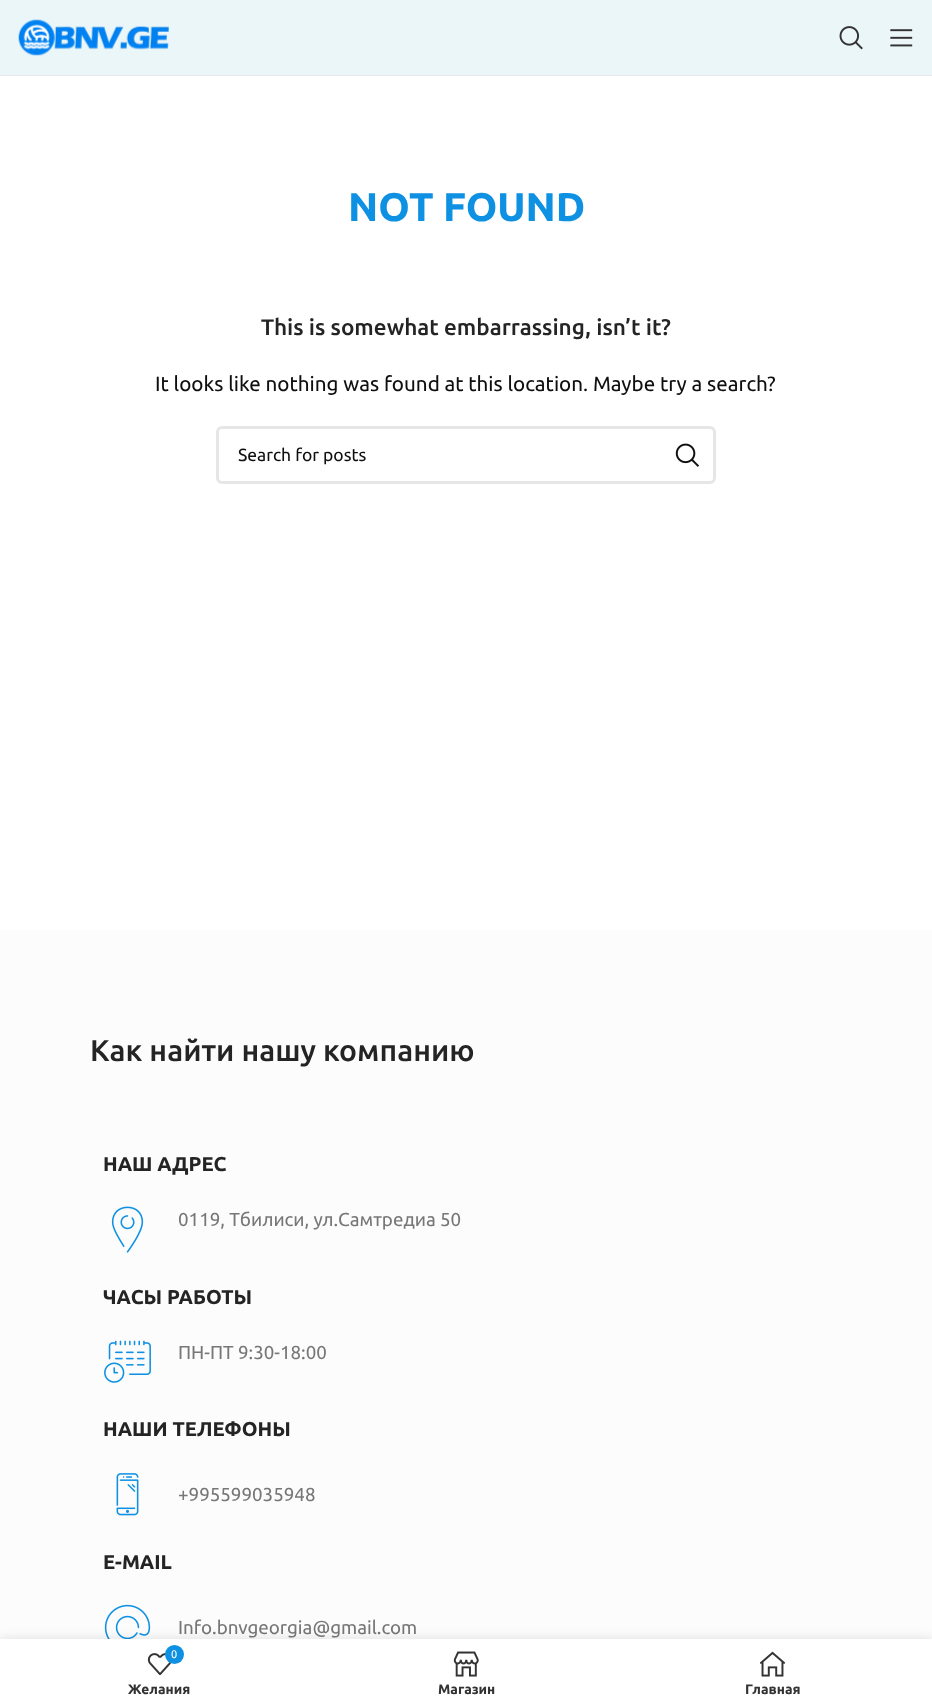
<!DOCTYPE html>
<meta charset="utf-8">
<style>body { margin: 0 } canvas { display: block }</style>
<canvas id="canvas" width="932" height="1707"></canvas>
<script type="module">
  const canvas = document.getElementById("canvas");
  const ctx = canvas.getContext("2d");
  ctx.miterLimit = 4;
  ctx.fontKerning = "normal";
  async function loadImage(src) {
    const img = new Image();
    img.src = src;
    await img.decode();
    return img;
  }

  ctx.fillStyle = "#ffffff";
  ctx.fillRect(0, 0, 932, 1707);
  ctx.fillStyle = "#ebf6f8";
  ctx.fillRect(0, 0, 932, 75);
  ctx.fillStyle = "#e8e8e8";
  ctx.fillRect(0, 75, 932, 1);
  ctx.drawImage(await loadImage("img1.png"), 18, 19, 151, 37);
  ctx.drawImage(await loadImage("img2.png"), 839, 26, 24, 24);
  ctx.drawImage(await loadImage("img3.png"), 890, 29, 23, 18);
  ctx.font = "bold 40px Ubuntu";
  ctx.fillStyle = "#0f91e3";
  ctx.fillText("NOT FOUND", 348, 221);
  ctx.font = "500 22.5px Ubuntu";
  ctx.fillStyle = "#242424";
  ctx.fillText("This is somewhat embarrassing, isn’t it?", 261, 335);
  ctx.font = "20.6px Ubuntu";
  ctx.fillStyle = "#0f0f0f";
  ctx.fillText("It looks like nothing was found at this location. Maybe try a search?", 155, 391);
  ctx.beginPath();
  ctx.roundRect(217.5, 427.5, 497, 55, 4.5);
  ctx.strokeStyle = "#e6e6e6";
  ctx.lineWidth = 3;
  ctx.stroke();
  ctx.font = "17.5px Ubuntu";
  ctx.fillText("Search for posts", 238, 461);
  ctx.drawImage(await loadImage("img4.png"), 675, 443, 24, 24);
  ctx.fillStyle = "#fcfcfc";
  ctx.fillRect(0, 930, 932, 709);
  ctx.font = "500 30px Ubuntu";
  ctx.fillStyle = "#242424";
  ctx.fillText("Как найти нашу компанию", 90, 1061);
  ctx.font = "bold 20px Ubuntu";
  ctx.fillText("НАШ АДРЕС", 103, 1171);
  ctx.drawImage(await loadImage("img5.png"), 111, 1206, 33, 47);
  ctx.font = "18.75px Ubuntu";
  ctx.fillStyle = "#777777";
  ctx.fillText("0119, Тбилиси, ул.Самтредиа 50", 178, 1226);
  ctx.font = "bold 20px Ubuntu";
  ctx.fillStyle = "#242424";
  ctx.fillText("ЧАСЫ РАБОТЫ", 103, 1304);
  ctx.drawImage(await loadImage("img6.png"), 104, 1340, 47, 43);
  ctx.font = "18.75px Ubuntu";
  ctx.fillStyle = "#777777";
  ctx.fillText("ПН-ПТ 9:30-18:00", 178, 1359);
  ctx.font = "bold 20px Ubuntu";
  ctx.fillStyle = "#242424";
  ctx.fillText("НАШИ ТЕЛЕФОНЫ", 103, 1436);
  ctx.drawImage(await loadImage("img7.png"), 116, 1473, 23, 43);
  ctx.font = "18.75px Ubuntu";
  ctx.fillStyle = "#777777";
  ctx.fillText("+995599035948", 178, 1501);
  ctx.font = "bold 20px Ubuntu";
  ctx.fillStyle = "#242424";
  ctx.fillText("E-MAIL", 103, 1569);
  ctx.drawImage(await loadImage("img8.png"), 104, 1604, 47, 35);
  ctx.font = "18.75px Ubuntu";
  ctx.fillStyle = "#777777";
  ctx.fillText("Info.bnvgeorgia@gmail.com", 178, 1634);
  ctx.fillStyle = "rgba(0, 0, 0, 0.12)";
  ctx.filter = "blur(5.5px)";
  ctx.beginPath();
  ctx.rect(0, 1639, 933, 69);
  ctx.fill();
  ctx.filter = "none";
  ctx.fillStyle = "#ffffff";
  ctx.fillRect(0, 1639, 932, 68);
  ctx.drawImage(await loadImage("img9.png"), 147, 1653, 25, 22);
  ctx.fillStyle = "#0f91e3";
  ctx.beginPath();
  ctx.arc(174.5, 1654.5, 9.5, 0, Math.PI * 2);
  ctx.fill();
  ctx.font = "11px Ubuntu";
  ctx.fillStyle = "#ffffff";
  ctx.fillText("0", 171, 1658);
  ctx.font = "bold 13.75px Ubuntu";
  ctx.fillStyle = "#333333";
  ctx.fillText("Желания", 128, 1694);
  ctx.drawImage(await loadImage("img10.png"), 453, 1651, 26, 26);
  ctx.fillText("Магазин", 438, 1694);
  ctx.drawImage(await loadImage("img11.png"), 760, 1651, 25, 26);
  ctx.fillText("Главная", 745, 1694);
</script>
